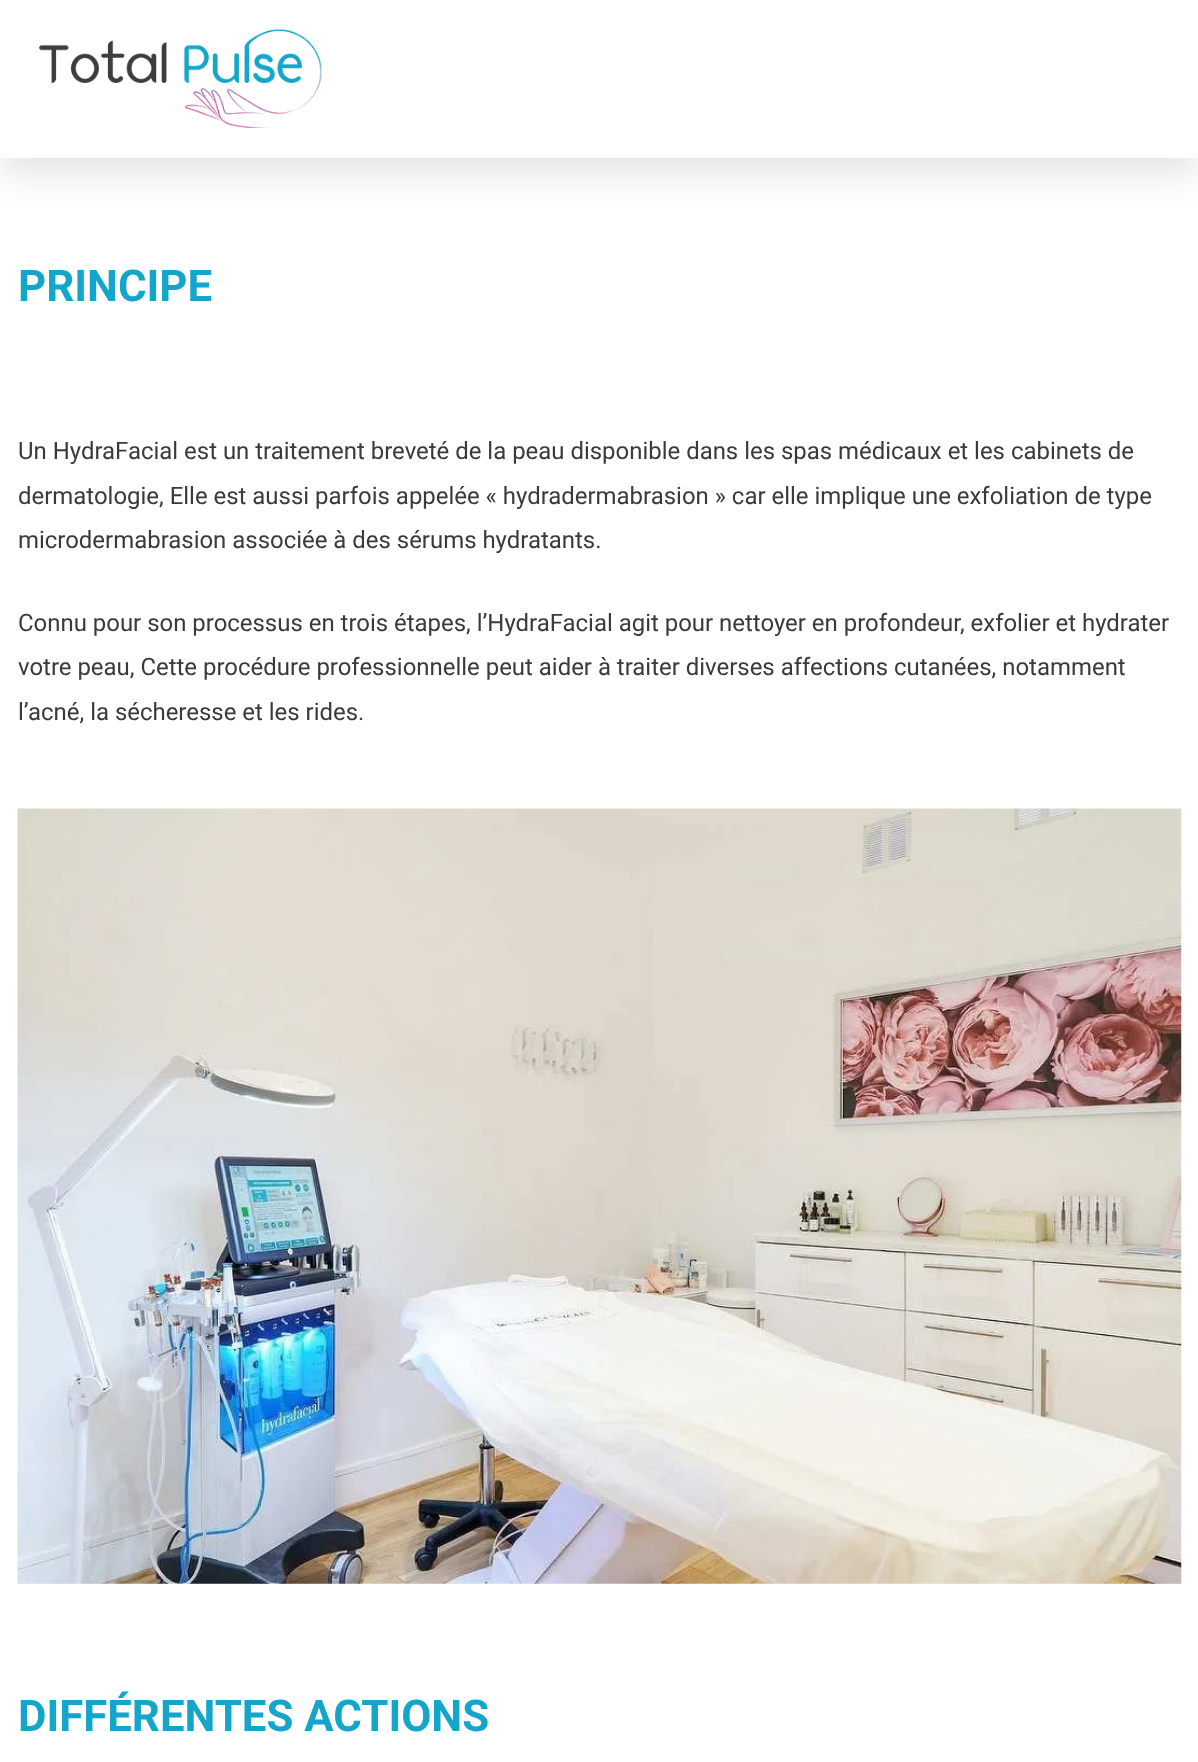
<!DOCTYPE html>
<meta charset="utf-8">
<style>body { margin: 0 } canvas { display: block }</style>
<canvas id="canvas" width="1198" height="1762"></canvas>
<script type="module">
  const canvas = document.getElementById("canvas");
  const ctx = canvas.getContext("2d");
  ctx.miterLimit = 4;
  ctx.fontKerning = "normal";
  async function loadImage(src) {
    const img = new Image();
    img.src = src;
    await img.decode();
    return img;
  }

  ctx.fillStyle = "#ffffff";
  ctx.fillRect(0, 0, 1198, 1762);
  ctx.fillStyle = "rgba(0, 0, 0, 0.1)";
  ctx.filter = "blur(17.5px)";
  ctx.beginPath();
  ctx.rect(0, 18, 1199, 157);
  ctx.fill();
  ctx.filter = "none";
  ctx.fillStyle = "#ffffff";
  ctx.fillRect(0, 0, 1198, 158);
  ctx.drawImage(await loadImage("img1.png"), 39, 29, 283, 99);
  ctx.font = "bold 43.75px Roboto";
  ctx.fillStyle = "#14a6ca";
  ctx.fillText("PRINCIPE", 18, 301);
  ctx.font = "23.95px Roboto";
  ctx.fillStyle = "#3a3a3a";
  ctx.fillText("Un HydraFacial est un traitement breveté de la peau disponible dans les spas médicaux et les cabinets de", 18, 459);
  ctx.fillText("dermatologie, Elle est aussi parfois appelée « hydradermabrasion » car elle implique une exfoliation de type", 18, 504);
  ctx.fillText("microdermabrasion associée à des sérums hydratants.", 18, 548);
  ctx.fillText("Connu pour son processus en trois étapes, l’HydraFacial agit pour nettoyer en profondeur, exfolier et hydrater", 18, 631);
  ctx.fillText("votre peau, Cette procédure professionnelle peut aider à traiter diverses affections cutanées, notamment", 18, 675);
  ctx.fillText("l’acné, la sécheresse et les rides.", 18, 720);
  ctx.drawImage(await loadImage("img2.png"), 17, 808, 1165, 776);
  ctx.font = "bold 43.75px Roboto";
  ctx.fillStyle = "#14a6ca";
  ctx.fillText("DIFFÉRENTES ACTIONS", 18, 1731);
</script>
